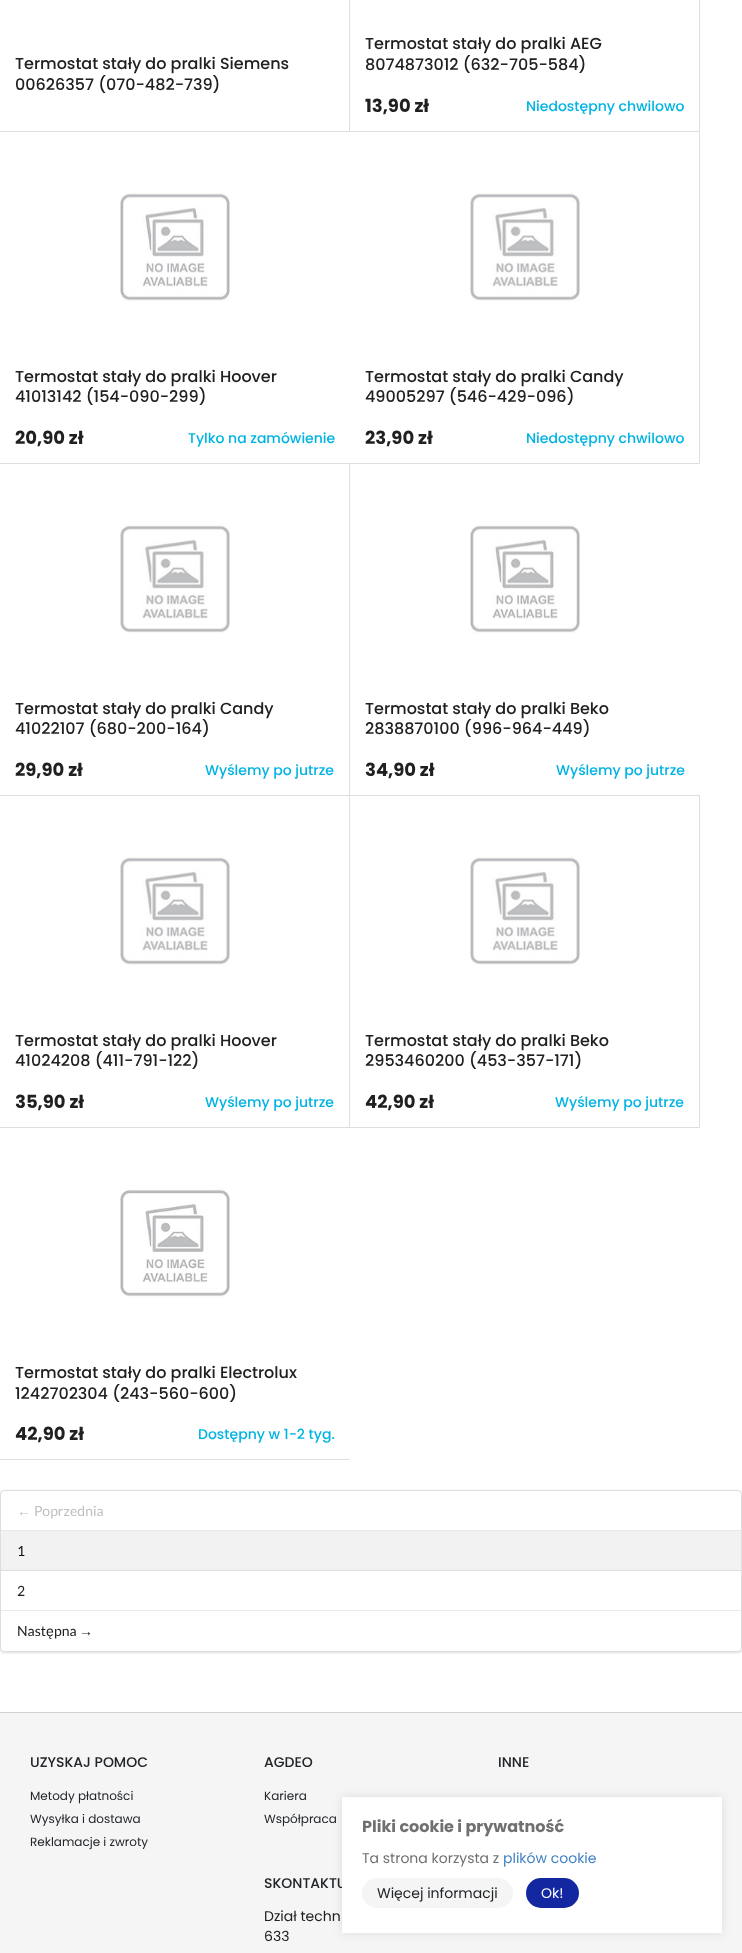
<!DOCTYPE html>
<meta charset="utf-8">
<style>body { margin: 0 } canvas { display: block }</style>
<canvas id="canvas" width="742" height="1953"></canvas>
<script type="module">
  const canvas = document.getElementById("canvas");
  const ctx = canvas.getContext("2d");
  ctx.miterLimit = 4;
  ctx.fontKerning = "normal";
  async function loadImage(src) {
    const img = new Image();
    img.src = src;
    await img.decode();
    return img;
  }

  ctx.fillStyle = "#ffffff";
  ctx.fillRect(0, 0, 742, 1953);
  ctx.fillStyle = "#dededf";
  ctx.fillRect(349, 0, 1, 132);
  ctx.fillRect(0, 131, 350, 1);
  ctx.font = "500 16px Poppins";
  ctx.fillStyle = "#202020";
  ctx.fillText("Termostat stały do pralki Siemens", 15, 69);
  ctx.fillText("00626357 (070-482-739)", 15, 90);
  ctx.fillStyle = "#dededf";
  ctx.fillRect(699, 0, 1, 464);
  ctx.fillRect(350, 131, 350, 1);
  ctx.fillStyle = "#202020";
  ctx.fillText("Termostat stały do pralki AEG", 365, 49);
  ctx.fillText("8074873012 (632-705-584)", 365, 70);
  ctx.font = "bold 18px Poppins";
  ctx.fillText("13,90 zł", 365, 112);
  ctx.font = "500 14px Poppins";
  ctx.fillStyle = "#00b3e3";
  ctx.fillText("Niedostępny chwilowo", 526, 111);
  ctx.fillStyle = "#dededf";
  ctx.fillRect(0, 463, 700, 1);
  ctx.drawImage(await loadImage("img1.png"), 120, 192, 110, 110);
  ctx.font = "500 16px Poppins";
  ctx.fillStyle = "#202020";
  ctx.fillText("Termostat stały do pralki Hoover", 15, 382);
  ctx.fillText("41013142 (154-090-299)", 15, 402);
  ctx.font = "bold 18px Poppins";
  ctx.fillText("20,90 zł", 15, 444);
  ctx.font = "500 14px Poppins";
  ctx.fillStyle = "#00b3e3";
  ctx.fillText("Tylko na zamówienie", 188, 443);
  ctx.drawImage(await loadImage("img2.png"), 470, 192, 110, 110);
  ctx.font = "500 16px Poppins";
  ctx.fillStyle = "#202020";
  ctx.fillText("Termostat stały do pralki Candy", 365, 382);
  ctx.fillText("49005297 (546-429-096)", 365, 402);
  ctx.font = "bold 18px Poppins";
  ctx.fillText("23,90 zł", 365, 444);
  ctx.font = "500 14px Poppins";
  ctx.fillStyle = "#00b3e3";
  ctx.fillText("Niedostępny chwilowo", 526, 443);
  ctx.fillStyle = "#dededf";
  ctx.fillRect(349, 464, 1, 664);
  ctx.fillRect(0, 795, 700, 1);
  ctx.drawImage(await loadImage("img2.png"), 120, 524, 110, 110);
  ctx.font = "500 16px Poppins";
  ctx.fillStyle = "#202020";
  ctx.fillText("Termostat stały do pralki Candy", 15, 714);
  ctx.fillText("41022107 (680-200-164)", 15, 734);
  ctx.font = "bold 18px Poppins";
  ctx.fillText("29,90 zł", 15, 776);
  ctx.font = "500 14px Poppins";
  ctx.fillStyle = "#00b3e3";
  ctx.fillText("Wyślemy po jutrze", 205, 775);
  ctx.drawImage(await loadImage("img3.png"), 470, 524, 110, 110);
  ctx.font = "500 16px Poppins";
  ctx.fillStyle = "#202020";
  ctx.fillText("Termostat stały do pralki Beko", 365, 714);
  ctx.fillText("2838870100 (996-964-449)", 365, 734);
  ctx.font = "bold 18px Poppins";
  ctx.fillText("34,90 zł", 365, 776);
  ctx.font = "500 14px Poppins";
  ctx.fillStyle = "#00b3e3";
  ctx.fillText("Wyślemy po jutrze", 556, 775);
  ctx.fillStyle = "#dededf";
  ctx.fillRect(0, 1127, 350, 1);
  ctx.drawImage(await loadImage("img2.png"), 120, 856, 110, 110);
  ctx.font = "500 16px Poppins";
  ctx.fillStyle = "#202020";
  ctx.fillText("Termostat stały do pralki Hoover", 15, 1046);
  ctx.fillText("41024208 (411-791-122)", 15, 1066);
  ctx.font = "bold 18px Poppins";
  ctx.fillText("35,90 zł", 15, 1108);
  ctx.font = "500 14px Poppins";
  ctx.fillStyle = "#00b3e3";
  ctx.fillText("Wyślemy po jutrze", 205, 1107);
  ctx.fillStyle = "#dededf";
  ctx.fillRect(699, 796, 1, 332);
  ctx.fillRect(350, 1127, 350, 1);
  ctx.drawImage(await loadImage("img2.png"), 470, 856, 110, 110);
  ctx.font = "500 16px Poppins";
  ctx.fillStyle = "#202020";
  ctx.fillText("Termostat stały do pralki Beko", 365, 1046);
  ctx.fillText("2953460200 (453-357-171)", 365, 1066);
  ctx.font = "bold 18px Poppins";
  ctx.fillText("42,90 zł", 365, 1108);
  ctx.font = "500 14px Poppins";
  ctx.fillStyle = "#00b3e3";
  ctx.fillText("Wyślemy po jutrze", 555, 1107);
  ctx.fillStyle = "#dededf";
  ctx.fillRect(0, 1459, 350, 1);
  ctx.drawImage(await loadImage("img4.png"), 120, 1188, 110, 110);
  ctx.font = "500 16px Poppins";
  ctx.fillStyle = "#202020";
  ctx.fillText("Termostat stały do pralki Electrolux", 15, 1378);
  ctx.fillText("1242702304 (243-560-600)", 15, 1399);
  ctx.font = "bold 18px Poppins";
  ctx.fillText("42,90 zł", 15, 1440);
  ctx.font = "500 14px Poppins";
  ctx.fillStyle = "#00b3e3";
  ctx.fillText("Dostępny w 1-2 tyg.", 198, 1439);
  ctx.fillStyle = "rgba(34, 36, 38, 0.15)";
  ctx.filter = "blur(1px)";
  ctx.beginPath();
  ctx.roundRect(0, 1491, 742, 162, 4);
  ctx.fill();
  ctx.filter = "none";
  ctx.fillStyle = "#ffffff";
  ctx.beginPath();
  ctx.roundRect(0, 1490, 742, 162, 4);
  ctx.fill();
  ctx.beginPath();
  ctx.roundRect(0.5, 1490.5, 741, 161, 3.5);
  ctx.strokeStyle = "rgba(34, 36, 38, 0.15)";
  ctx.stroke();
  ctx.font = "14px Liberation Sans";
  ctx.fillStyle = "#bfbfbf";
  ctx.fillText("←", 17, 1516);
  ctx.font = "14px Lato";
  ctx.fillText("Poprzednia", 34, 1516);
  ctx.fillStyle = "#e9e9e9";
  ctx.fillRect(1, 1530, 740, 1);
  ctx.fillStyle = "#f2f2f2";
  ctx.fillRect(1, 1531, 740, 39);
  ctx.fillStyle = "#0c0c0c";
  ctx.fillText("1", 17, 1556);
  ctx.fillStyle = "#ddddde";
  ctx.fillRect(1, 1570, 740, 1);
  ctx.fillStyle = "#202020";
  ctx.fillText("2", 17, 1596);
  ctx.fillStyle = "#e9e9e9";
  ctx.fillRect(1, 1610, 740, 1);
  ctx.fillStyle = "#202020";
  ctx.fillText("Nast", 17, 1636);
  ctx.font = "14px Liberation Sans";
  ctx.fillText("ę", 46, 1636);
  ctx.font = "14px Lato";
  ctx.fillText("pna", 54, 1636);
  ctx.font = "14px Liberation Sans";
  ctx.fillText("→", 79, 1636);
  ctx.fillStyle = "#f5f5f5";
  ctx.fillRect(0, 1713, 742, 240);
  ctx.fillStyle = "#d0d0d0";
  ctx.fillRect(0, 1712, 742, 1);
  ctx.font = "500 14px Poppins";
  ctx.fillStyle = "#212428";
  ctx.fillText("UZYSKAJ POMOC", 30, 1767);
  ctx.font = "12px Poppins";
  ctx.fillText("Metody płatności", 30, 1800);
  ctx.fillText("Wysyłka i dostawa", 30, 1823);
  ctx.fillText("Reklamacje i zwroty", 30, 1846);
  ctx.font = "500 14px Poppins";
  ctx.fillText("AGDEO", 264, 1767);
  ctx.font = "12px Poppins";
  ctx.fillText("Kariera", 264, 1800);
  ctx.fillText("Współpraca", 264, 1823);
  ctx.font = "500 14px Poppins";
  ctx.fillText("INNE", 498, 1767);
  ctx.fillText("SKONTAKTU", 264, 1888);
  ctx.font = "14px Poppins";
  ctx.fillStyle = "#202020";
  ctx.fillText("Dział techn", 264, 1921);
  ctx.fillText("633", 264, 1941);
  ctx.fillStyle = "rgba(0, 0, 0, 0.1)";
  ctx.filter = "blur(5px)";
  ctx.beginPath();
  ctx.rect(342, 1797, 380, 136);
  ctx.fill();
  ctx.filter = "none";
  ctx.fillStyle = "#ffffff";
  ctx.fillRect(342, 1797, 380, 136);
  ctx.font = "bold 16px Poppins";
  ctx.fillStyle = "#707070";
  ctx.fillText("Pliki cookie i prywatność", 362, 1832);
  ctx.font = "14px Poppins";
  ctx.fillText("Ta strona korzysta z", 362, 1863);
  ctx.fillStyle = "#4183c4";
  ctx.fillText("plików cookie", 503, 1863);
  ctx.fillStyle = "#f5f5f5";
  ctx.beginPath();
  ctx.roundRect(362, 1878, 151, 30, 15);
  ctx.fill();
  ctx.fillStyle = "#212428";
  ctx.fillText("Więcej informacji", 377, 1898);
  ctx.fillStyle = "#1327a0";
  ctx.beginPath();
  ctx.roundRect(526, 1878, 53, 30, 15);
  ctx.fill();
  ctx.fillStyle = "#ffffff";
  ctx.fillText("Ok!", 541, 1898);
</script>
